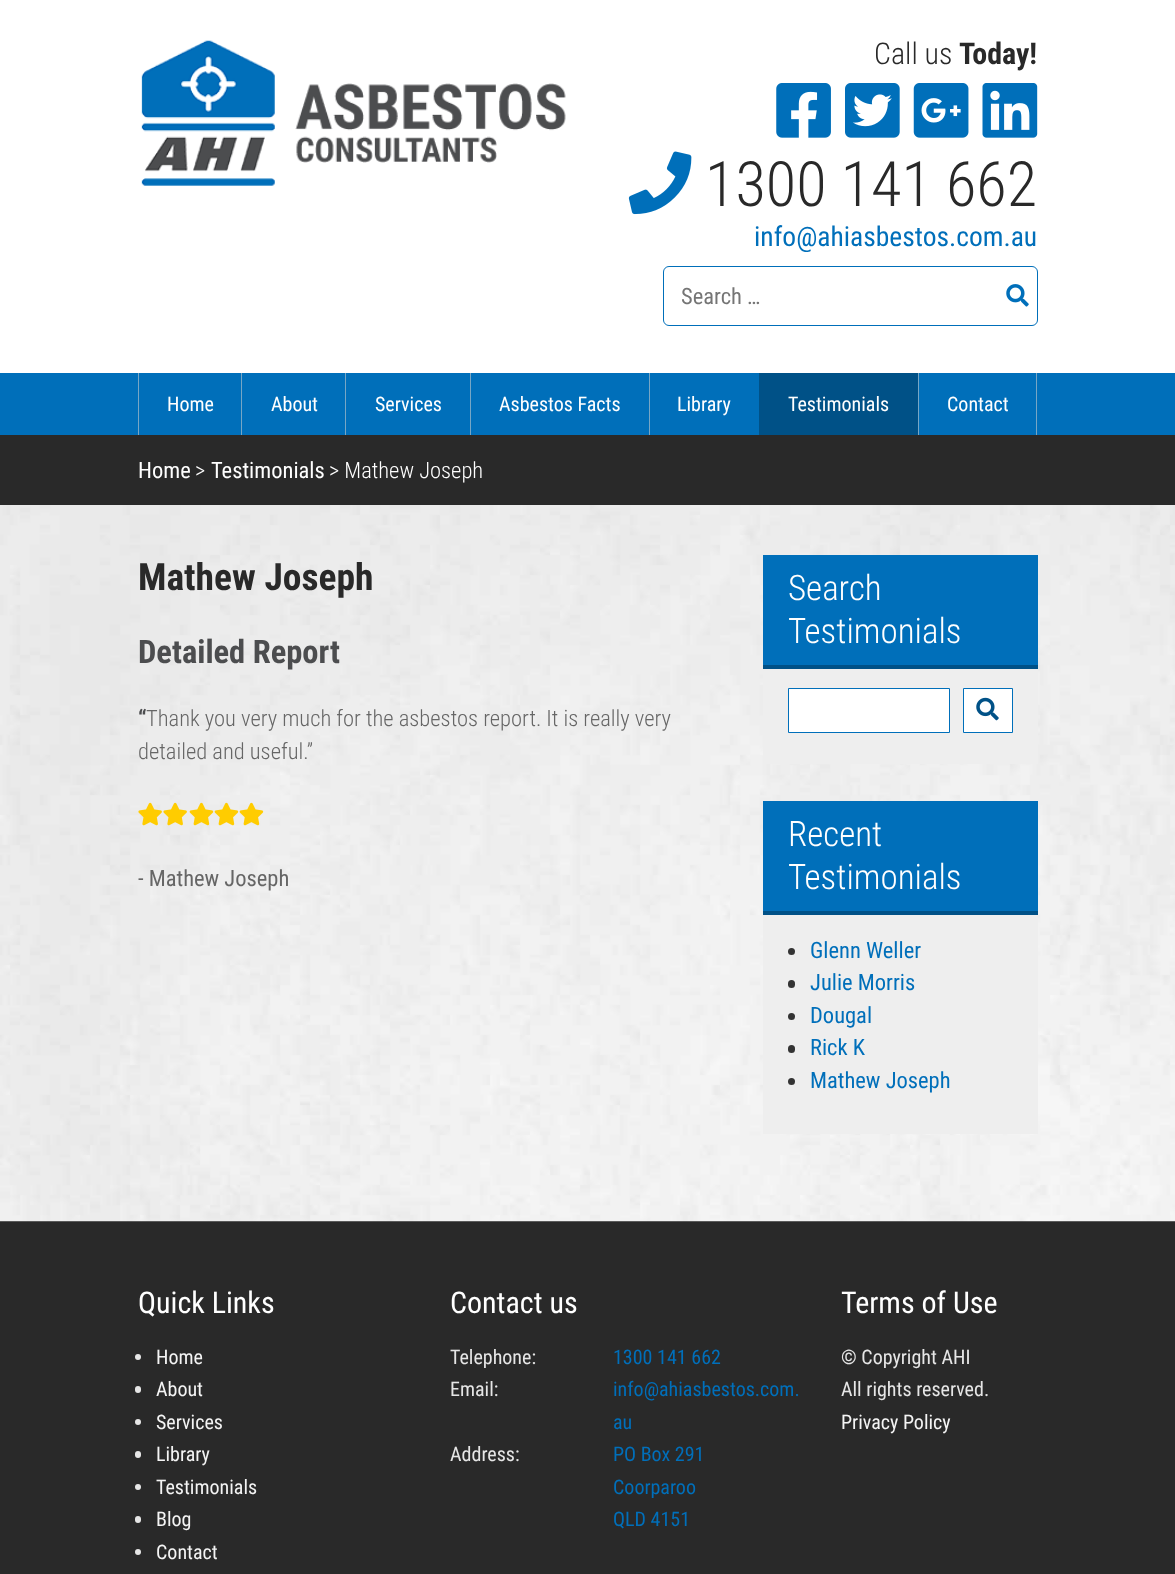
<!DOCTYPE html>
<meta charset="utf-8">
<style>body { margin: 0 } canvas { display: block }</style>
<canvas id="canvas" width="1175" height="1574"></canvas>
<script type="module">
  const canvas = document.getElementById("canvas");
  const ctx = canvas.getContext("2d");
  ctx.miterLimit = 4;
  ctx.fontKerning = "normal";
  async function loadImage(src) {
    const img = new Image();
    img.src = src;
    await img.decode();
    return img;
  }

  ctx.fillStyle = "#ffffff";
  ctx.fillRect(0, 0, 1175, 1574);
  ctx.drawImage(await loadImage("img1.png"), 141, 40, 425, 146);
  ctx.font = "300 30px Roboto Condensed";
  ctx.fillStyle = "#292929";
  ctx.fillText("Call us", 874, 64);
  ctx.font = "bold 30px Roboto Condensed";
  ctx.fillText("Today!", 959, 64);
  ctx.drawImage(await loadImage("img2.png"), 776, 83, 55, 55);
  ctx.drawImage(await loadImage("img3.png"), 845, 83, 55, 55);
  ctx.drawImage(await loadImage("img4.png"), 913, 83, 56, 55);
  ctx.drawImage(await loadImage("img5.png"), 982, 83, 56, 55);
  ctx.drawImage(await loadImage("img6.png"), 628, 151, 64, 64);
  ctx.font = "300 62.5px Roboto Condensed";
  ctx.fillText("1300 141 662", 705, 206);
  ctx.font = "27.5px Roboto Condensed";
  ctx.fillStyle = "#006fba";
  ctx.fillText("info@ahiasbestos.com.au", 754, 246);
  ctx.beginPath();
  ctx.roundRect(663.5, 266.5, 374, 59, 5.5);
  ctx.strokeStyle = "#006fba";
  ctx.stroke();
  ctx.font = "22.5px Roboto Condensed";
  ctx.fillStyle = "#757575";
  ctx.fillText("Search …", 681, 304);
  ctx.drawImage(await loadImage("img7.png"), 1006, 284, 23, 23);
  ctx.fillStyle = "#006fba";
  ctx.fillRect(0, 373, 1175, 62);
  ctx.fillStyle = "#77a6c5";
  ctx.fillRect(138, 373, 1, 62);
  ctx.font = "20px Roboto Condensed";
  ctx.fillStyle = "#ffffff";
  ctx.fillText("Home", 167, 411);
  ctx.fillStyle = "#77a6c5";
  ctx.fillRect(241, 373, 1, 62);
  ctx.fillStyle = "#ffffff";
  ctx.fillText("About", 271, 411);
  ctx.fillStyle = "#77a6c5";
  ctx.fillRect(345, 373, 1, 62);
  ctx.fillStyle = "#ffffff";
  ctx.fillText("Services", 375, 411);
  ctx.fillStyle = "#77a6c5";
  ctx.fillRect(470, 373, 1, 62);
  ctx.fillStyle = "#ffffff";
  ctx.fillText("Asbestos Facts", 499, 411);
  ctx.fillStyle = "#77a6c5";
  ctx.fillRect(649, 373, 1, 62);
  ctx.fillStyle = "#ffffff";
  ctx.fillText("Library", 677, 411);
  ctx.fillStyle = "#005187";
  ctx.fillRect(759, 373, 159, 62);
  ctx.fillStyle = "#ffffff";
  ctx.fillText("Testimonials", 788, 411);
  ctx.fillStyle = "#77a6c5";
  ctx.fillRect(1036, 373, 1, 62);
  ctx.fillRect(918, 373, 1, 62);
  ctx.fillStyle = "#ffffff";
  ctx.fillText("Contact", 947, 411);
  ctx.fillStyle = "#292929";
  ctx.fillRect(0, 435, 1175, 70);
  ctx.font = "22.5px Roboto Condensed";
  ctx.fillStyle = "#ffffff";
  ctx.fillText("Home", 138, 478);
  ctx.font = "300 22.5px Roboto Condensed";
  ctx.fillText(">", 195, 478);
  ctx.font = "22.5px Roboto Condensed";
  ctx.fillText("Testimonials", 211, 478);
  ctx.font = "300 22.5px Roboto Condensed";
  ctx.fillText("> Mathew Joseph", 329, 478);
  ctx.fillStyle = "#292929";
  ctx.fillRect(0, 1221, 1175, 353);
  ctx.drawImage(await loadImage("img8.png"), 0, 505, 1175, 717);
  ctx.font = "bold 37.5px Roboto Condensed";
  ctx.fillText("Mathew Joseph", 138, 590);
  ctx.font = "bold 32.5px Roboto Condensed";
  ctx.fillStyle = "#4c4d4f";
  ctx.fillText("Detailed Report", 138, 663);
  ctx.font = "bold 22.5px Roboto Condensed";
  ctx.fillText("“", 138, 726);
  ctx.font = "300 22.5px Roboto Condensed";
  ctx.fillStyle = "#666666";
  ctx.fillText("Thank you very much for the asbestos report. It is really very", 146, 726);
  ctx.fillText("detailed and useful.”", 138, 759);
  ctx.drawImage(await loadImage("img9.png"), 138, 802, 24, 24);
  ctx.drawImage(await loadImage("img10.png"), 163, 802, 24, 24);
  ctx.drawImage(await loadImage("img11.png"), 189, 802, 25, 24);
  ctx.drawImage(await loadImage("img12.png"), 214, 802, 25, 24);
  ctx.drawImage(await loadImage("img13.png"), 239, 802, 25, 24);
  ctx.font = "22.5px Roboto Condensed";
  ctx.fillText("- Mathew Joseph", 138, 886);
  ctx.fillStyle = "#006fba";
  ctx.fillRect(763, 555, 275, 110);
  ctx.fillStyle = "#005187";
  ctx.fillRect(763, 665, 275, 4);
  ctx.font = "300 35px Roboto Condensed";
  ctx.fillStyle = "#ffffff";
  ctx.fillText("Search", 788, 600);
  ctx.fillText("Testimonials", 788, 643);
  ctx.fillStyle = "#eeeeee";
  ctx.fillRect(763, 669, 275, 95);
  ctx.fillStyle = "#ffffff";
  ctx.beginPath();
  ctx.rect(788.5, 688.5, 161, 44);
  ctx.fill();
  ctx.stroke();
  ctx.beginPath();
  ctx.rect(963.5, 688.5, 49, 44);
  ctx.fill();
  ctx.stroke();
  ctx.drawImage(await loadImage("img14.png"), 976, 697, 23, 24);
  ctx.fillStyle = "#006fba";
  ctx.fillRect(763, 801, 275, 110);
  ctx.fillStyle = "#005187";
  ctx.fillRect(763, 911, 275, 4);
  ctx.fillStyle = "#ffffff";
  ctx.fillText("Recent", 788, 846);
  ctx.fillText("Testimonials", 788, 889);
  ctx.fillStyle = "#eeeeee";
  ctx.fillRect(763, 915, 275, 219);
  ctx.fillStyle = "#333333";
  ctx.beginPath();
  ctx.arc(791.5, 951.5, 3.5, 0, Math.PI * 2);
  ctx.fill();
  ctx.font = "22.5px Roboto Condensed";
  ctx.fillStyle = "#006fba";
  ctx.fillText("Glenn Weller", 810, 958);
  ctx.fillStyle = "#333333";
  ctx.beginPath();
  ctx.roundRect(788, 980, 7, 8, 3.5);
  ctx.fill();
  ctx.fillStyle = "#006fba";
  ctx.fillText("Julie Morris", 810, 990);
  ctx.fillStyle = "#333333";
  ctx.beginPath();
  ctx.arc(791.5, 1016.5, 3.5, 0, Math.PI * 2);
  ctx.fill();
  ctx.fillStyle = "#006fba";
  ctx.fillText("Dougal", 810, 1023);
  ctx.fillStyle = "#333333";
  ctx.beginPath();
  ctx.roundRect(788, 1045, 7, 8, 3.5);
  ctx.fill();
  ctx.fillStyle = "#006fba";
  ctx.fillText("Rick K", 810, 1055);
  ctx.fillStyle = "#333333";
  ctx.beginPath();
  ctx.arc(791.5, 1081.5, 3.5, 0, Math.PI * 2);
  ctx.fill();
  ctx.fillStyle = "#006fba";
  ctx.fillText("Mathew Joseph", 810, 1088);
  ctx.font = "30px Roboto Condensed";
  ctx.fillStyle = "#ffffff";
  ctx.fillText("Quick Links", 138, 1313);
  ctx.fillStyle = "#e6e6e6";
  ctx.beginPath();
  ctx.arc(138, 1357, 3, 0, Math.PI * 2);
  ctx.fill();
  ctx.font = "20px Roboto Condensed";
  ctx.fillStyle = "#f4f4f4";
  ctx.fillText("Home", 156, 1364);
  ctx.fillStyle = "#e6e6e6";
  ctx.beginPath();
  ctx.roundRect(135, 1386, 6, 7, 3);
  ctx.fill();
  ctx.fillStyle = "#f4f4f4";
  ctx.fillText("About", 156, 1396);
  ctx.fillStyle = "#e6e6e6";
  ctx.beginPath();
  ctx.arc(138, 1422, 3, 0, Math.PI * 2);
  ctx.fill();
  ctx.fillStyle = "#f4f4f4";
  ctx.fillText("Services", 156, 1429);
  ctx.fillStyle = "#e6e6e6";
  ctx.beginPath();
  ctx.roundRect(135, 1451, 6, 7, 3);
  ctx.fill();
  ctx.fillStyle = "#f4f4f4";
  ctx.fillText("Library", 156, 1461);
  ctx.fillStyle = "#e6e6e6";
  ctx.beginPath();
  ctx.arc(138, 1487, 3, 0, Math.PI * 2);
  ctx.fill();
  ctx.fillStyle = "#f4f4f4";
  ctx.fillText("Testimonials", 156, 1494);
  ctx.fillStyle = "#e6e6e6";
  ctx.beginPath();
  ctx.roundRect(135, 1516, 6, 7, 3);
  ctx.fill();
  ctx.fillStyle = "#f4f4f4";
  ctx.fillText("Blog", 156, 1526);
  ctx.fillStyle = "#e6e6e6";
  ctx.beginPath();
  ctx.arc(138, 1552, 3, 0, Math.PI * 2);
  ctx.fill();
  ctx.fillStyle = "#f4f4f4";
  ctx.fillText("Contact", 156, 1559);
  ctx.font = "30px Roboto Condensed";
  ctx.fillStyle = "#ffffff";
  ctx.fillText("Contact us", 450, 1313);
  ctx.font = "20px Roboto Condensed";
  ctx.fillStyle = "#e6e6e6";
  ctx.fillText("Telephone:", 450, 1364);
  ctx.fillStyle = "#006fba";
  ctx.fillText("1300 141 662", 613, 1364);
  ctx.fillStyle = "#e6e6e6";
  ctx.fillText("Email:", 450, 1396);
  ctx.fillStyle = "#006fba";
  ctx.fillText("info@ahiasbestos.com.", 613, 1396);
  ctx.fillText("au", 613, 1429);
  ctx.fillStyle = "#e6e6e6";
  ctx.fillText("Address:", 450, 1461);
  ctx.fillStyle = "#006fba";
  ctx.fillText("PO Box 291", 613, 1461);
  ctx.fillText("Coorparoo", 613, 1494);
  ctx.fillText("QLD 4151", 613, 1526);
  ctx.font = "30px Roboto Condensed";
  ctx.fillStyle = "#ffffff";
  ctx.fillText("Terms of Use", 841, 1313);
  ctx.font = "20px Roboto Condensed";
  ctx.fillStyle = "#e6e6e6";
  ctx.fillText("© Copyright AHI", 841, 1364);
  ctx.fillText("All rights reserved.", 841, 1396);
  ctx.fillStyle = "#f4f4f4";
  ctx.fillText("Privacy Policy", 841, 1429);
</script>
